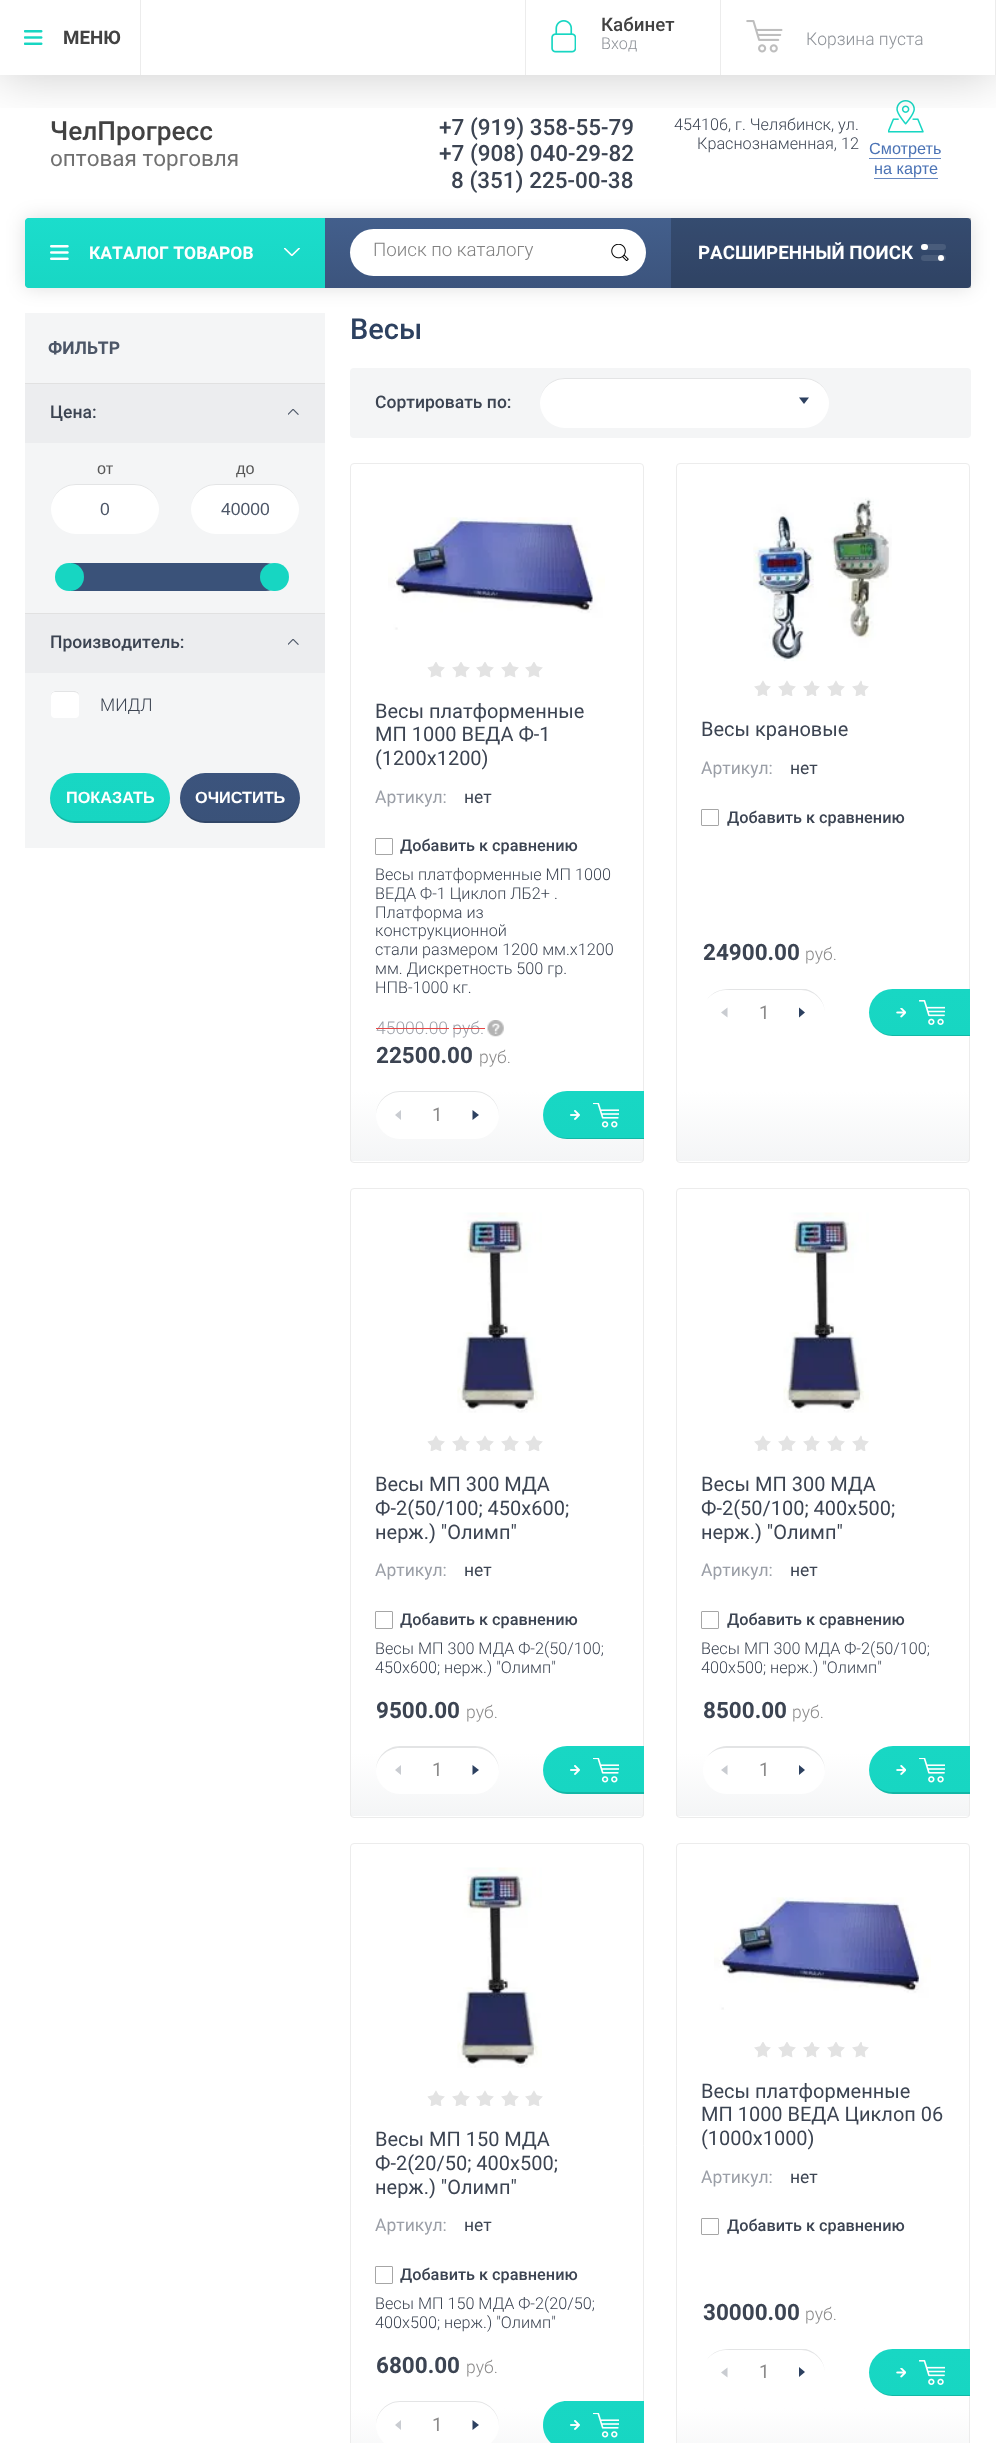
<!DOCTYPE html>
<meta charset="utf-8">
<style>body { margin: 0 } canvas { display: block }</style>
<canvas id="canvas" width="996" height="2443"></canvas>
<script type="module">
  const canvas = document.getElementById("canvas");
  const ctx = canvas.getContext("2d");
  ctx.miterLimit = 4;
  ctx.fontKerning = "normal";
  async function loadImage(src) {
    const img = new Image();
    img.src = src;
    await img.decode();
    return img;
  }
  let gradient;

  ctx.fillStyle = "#ffffff";
  ctx.fillRect(0, 0, 996, 2443);
  ctx.drawImage(await loadImage("img4.png"), 888, 100, 36, 33);
  ctx.save();
  ctx.beginPath();
  ctx.rect(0, 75, 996, 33);
  ctx.clip();
  ctx.fillStyle = "rgba(0, 0, 0, 0.2)";
  ctx.filter = "blur(25px)";
  ctx.beginPath();
  ctx.rect(0, 1, 996, 75);
  ctx.fill();
  ctx.filter = "none";
  ctx.restore();
  ctx.drawImage(await loadImage("img1.png"), 24, 30, 19, 15);
  ctx.fillStyle = "#ececec";
  ctx.fillRect(140, 0, 1, 75);
  ctx.font = "bold 18.75px Roboto";
  ctx.fillStyle = "#424242";
  ctx.fillText("МЕНЮ", 63, 44);
  ctx.fillStyle = "#ececec";
  ctx.fillRect(525, 0, 1, 75);
  ctx.fillRect(720, 0, 1, 75);
  ctx.drawImage(await loadImage("img2.png"), 551, 20, 25, 33);
  ctx.font = "500 18.75px Roboto";
  ctx.fillStyle = "#424242";
  ctx.fillText("Кабинет", 601, 31);
  ctx.font = "300 16.25px Roboto";
  ctx.fillStyle = "#8e9298";
  ctx.fillText("Вход", 601, 49);
  ctx.fillStyle = "#ececec";
  ctx.fillRect(995, 0, 1, 75);
  ctx.drawImage(await loadImage("img3.png"), 746, 20, 37, 33);
  ctx.font = "300 17.5px Roboto";
  ctx.fillStyle = "#8e9298";
  ctx.fillText("Корзина пуста", 806, 45);
  ctx.font = "500 26.25px Roboto";
  ctx.fillStyle = "#424242";
  ctx.fillText("ЧелПрогресс", 50, 140);
  ctx.font = "22.5px Roboto";
  ctx.fillStyle = "#707070";
  ctx.fillText("оптовая торговля", 50, 166);
  ctx.font = "500 22.5px Roboto";
  ctx.fillStyle = "#3c4452";
  ctx.fillText("+7 (919) 358-55-79", 439, 135);
  ctx.fillText("+7 (908) 040-29-82", 439, 161);
  ctx.fillText("8 (351) 225-00-38", 451, 188);
  ctx.font = "300 16.25px Roboto";
  ctx.fillText("454106, г. Челябинск, ул.", 674, 130);
  ctx.fillText("Краснознаменная, 12", 697, 149);
  ctx.font = "16.25px Liberation Sans";
  ctx.fillStyle = "#4b73b5";
  ctx.fillText("Смотреть", 869, 154);
  ctx.fillStyle = "#6889c1";
  ctx.fillRect(869, 158, 72, 1);
  ctx.fillStyle = "#4b73b5";
  ctx.fillText("на карте", 874, 174);
  ctx.fillStyle = "#6889c1";
  ctx.fillRect(874, 178, 64, 1);
  ctx.fillStyle = "rgba(0, 0, 0, 0.13)";
  ctx.filter = "blur(9.5px)";
  ctx.beginPath();
  ctx.roundRect(25, 218, 946, 70, 5);
  ctx.fill();
  ctx.filter = "none";
  gradient = ctx.createLinearGradient(498, 288, 498, 218);
  gradient.addColorStop(0, "#3c547d");
  gradient.addColorStop(1, "#435f8c");
  ctx.fillStyle = gradient;
  ctx.beginPath();
  ctx.roundRect(25, 218, 946, 70, [5, 4, 4, 5]);
  ctx.fill();
  gradient = ctx.createLinearGradient(175, 288, 175, 218);
  gradient.addColorStop(0, "#18d7c4");
  gradient.addColorStop(1, "#1bddcc");
  ctx.fillStyle = gradient;
  ctx.beginPath();
  ctx.roundRect(25, 218, 300, 70, [4, 0, 0, 4]);
  ctx.fill();
  ctx.drawImage(await loadImage("img5.png"), 50, 245, 19, 15);
  ctx.font = "bold 17.5px Roboto";
  ctx.fillStyle = "#ffffff";
  ctx.fillText("КАТАЛОГ ТОВАРОВ", 89, 259);
  ctx.drawImage(await loadImage("img6.png"), 284, 248, 16, 8);
  ctx.beginPath();
  ctx.roundRect(350, 229, 296, 47, 23.5);
  ctx.fill();
  ctx.font = "300 18.75px Roboto";
  ctx.fillStyle = "#818181";
  ctx.fillText("Поиск по каталогу", 373, 256);
  ctx.drawImage(await loadImage("img7.png"), 611, 244, 18, 17);
  ctx.fillStyle = "rgba(0, 0, 0, 0.2)";
  ctx.fillRect(671, 218, 300, 70);
  ctx.font = "bold 18.75px Roboto";
  ctx.fillStyle = "#ffffff";
  ctx.fillText("РАСШИРЕННЫЙ ПОИСК", 698, 259);
  ctx.fillStyle = "#495c7b";
  ctx.beginPath();
  ctx.roundRect(921, 244, 25, 6, 3);
  ctx.fill();
  ctx.fillStyle = "#ffffff";
  ctx.beginPath();
  ctx.roundRect(921, 244, 7, 6, 3);
  ctx.fill();
  ctx.fillStyle = "#485b79";
  ctx.beginPath();
  ctx.roundRect(921, 255, 25, 6, 3);
  ctx.fill();
  ctx.fillStyle = "#ffffff";
  ctx.beginPath();
  ctx.arc(941, 258, 3, 0, Math.PI * 2);
  ctx.fill();
  ctx.fillStyle = "#f4f5f6";
  ctx.fillRect(25, 313, 300, 535);
  ctx.font = "bold 17.5px Roboto";
  ctx.fillStyle = "#4c5667";
  ctx.fillText("ФИЛЬТР", 48, 354);
  ctx.fillStyle = "#e1e1e1";
  ctx.fillRect(25, 383, 300, 1);
  ctx.fillStyle = "#ecedef";
  ctx.fillRect(25, 384, 300, 59);
  ctx.font = "500 17.5px Roboto";
  ctx.fillStyle = "#3c4452";
  ctx.fillText("Цена:", 50, 418);
  ctx.drawImage(await loadImage("img8.png"), 288, 409, 11, 6);
  ctx.font = "16.25px Liberation Sans";
  ctx.fillStyle = "#585858";
  ctx.fillText("от", 97, 474);
  ctx.fillStyle = "#ffffff";
  ctx.beginPath();
  ctx.roundRect(51, 484, 108, 50, 25);
  ctx.fill();
  ctx.fillStyle = "#e3e4e5";
  ctx.beginPath();
  ctx.moveTo(76, 485);
  ctx.lineTo(134, 485);
  ctx.bezierCurveTo(148, 485, 159, 496, 159, 509);
  ctx.bezierCurveTo(159, 495, 148, 484, 134, 484);
  ctx.lineTo(76, 484);
  ctx.bezierCurveTo(62, 484, 51, 495, 51, 509);
  ctx.bezierCurveTo(51, 496, 62, 485, 76, 485);
  ctx.closePath();
  ctx.fill();
  ctx.font = "17.5px Liberation Sans";
  ctx.fillStyle = "#4c5667";
  ctx.fillText("0", 100, 515);
  ctx.font = "16.25px Liberation Sans";
  ctx.fillStyle = "#585858";
  ctx.fillText("до", 236, 474);
  ctx.fillStyle = "#ffffff";
  ctx.beginPath();
  ctx.roundRect(191, 484, 108, 50, 25);
  ctx.fill();
  ctx.fillStyle = "#e3e4e5";
  ctx.beginPath();
  ctx.moveTo(216, 485);
  ctx.lineTo(274, 485);
  ctx.bezierCurveTo(288, 485, 299, 496, 299, 509);
  ctx.bezierCurveTo(299, 495, 288, 484, 274, 484);
  ctx.lineTo(216, 484);
  ctx.bezierCurveTo(202, 484, 191, 495, 191, 509);
  ctx.bezierCurveTo(191, 496, 202, 485, 216, 485);
  ctx.closePath();
  ctx.fill();
  ctx.font = "17.5px Liberation Sans";
  ctx.fillStyle = "#4c5667";
  ctx.fillText("40000", 221, 515);
  ctx.fillStyle = "#3a5279";
  ctx.beginPath();
  ctx.roundRect(71, 563, 209, 28, [0, 14, 14, 0]);
  ctx.fill();
  ctx.fillStyle = "#17d6c2";
  ctx.beginPath();
  ctx.roundRect(55, 563, 29, 28, 14);
  ctx.fill();
  ctx.beginPath();
  ctx.roundRect(260, 563, 29, 28, 14);
  ctx.fill();
  ctx.fillStyle = "#e1e1e1";
  ctx.fillRect(25, 613, 300, 1);
  ctx.fillStyle = "#ecedef";
  ctx.fillRect(25, 614, 300, 59);
  ctx.font = "500 17.5px Roboto";
  ctx.fillStyle = "#3c4452";
  ctx.fillText("Производитель:", 50, 648);
  ctx.drawImage(await loadImage("img8.png"), 288, 639, 11, 6);
  ctx.fillStyle = "#ffffff";
  ctx.beginPath();
  ctx.roundRect(51, 691, 28, 27, 4);
  ctx.fill();
  ctx.fillStyle = "#e3e4e5";
  ctx.beginPath();
  ctx.moveTo(55, 692);
  ctx.lineTo(72, 692);
  ctx.bezierCurveTo(77, 692, 78.5, 693.5, 79, 696);
  ctx.bezierCurveTo(79, 691, 76, 691, 71.5, 691);
  ctx.lineTo(58.5, 691);
  ctx.bezierCurveTo(54.5, 691, 51, 691, 51, 696);
  ctx.bezierCurveTo(51.5, 693.5, 52.5, 692, 55, 692);
  ctx.closePath();
  ctx.fill();
  ctx.font = "300 17.5px Roboto";
  ctx.fillStyle = "#3c4452";
  ctx.fillText("МИДЛ", 100, 711);
  gradient = ctx.createLinearGradient(110, 823, 110, 773);
  gradient.addColorStop(0, "#17d6c2");
  gradient.addColorStop(1, "#18d7c4");
  ctx.fillStyle = gradient;
  ctx.beginPath();
  ctx.roundRect(50, 773, 120, 50, 25);
  ctx.fill();
  ctx.fillStyle = "rgba(0, 0, 0, 0.14)";
  ctx.beginPath();
  ctx.moveTo(50, 797);
  ctx.lineTo(50, 798);
  ctx.bezierCurveTo(50, 812, 61, 823, 75, 823);
  ctx.lineTo(145, 823);
  ctx.bezierCurveTo(159, 823, 170, 812, 170, 798);
  ctx.lineTo(170, 797);
  ctx.bezierCurveTo(169, 811, 159, 821, 145, 821);
  ctx.lineTo(75, 821);
  ctx.bezierCurveTo(61, 821, 51, 811, 50, 797);
  ctx.closePath();
  ctx.fill();
  ctx.font = "bold 16.25px Liberation Sans";
  ctx.fillStyle = "#ffffff";
  ctx.fillText("ПОКАЗАТЬ", 66, 803);
  gradient = ctx.createLinearGradient(240, 823, 240, 773);
  gradient.addColorStop(0, "#3a5279");
  gradient.addColorStop(1, "#3c547d");
  ctx.fillStyle = gradient;
  ctx.beginPath();
  ctx.roundRect(180, 773, 120, 50, 25);
  ctx.fill();
  ctx.fillStyle = "rgba(0, 0, 0, 0.14)";
  ctx.beginPath();
  ctx.moveTo(180, 797);
  ctx.lineTo(180, 798);
  ctx.bezierCurveTo(180, 812, 191, 823, 205, 823);
  ctx.lineTo(275, 823);
  ctx.bezierCurveTo(289, 823, 300, 812, 300, 798);
  ctx.lineTo(300, 797);
  ctx.bezierCurveTo(299, 811, 289, 821, 275, 821);
  ctx.lineTo(205, 821);
  ctx.bezierCurveTo(191, 821, 181, 811, 180, 797);
  ctx.closePath();
  ctx.fill();
  ctx.fillStyle = "#ffffff";
  ctx.fillText("ОЧИСТИТЬ", 195, 803);
  ctx.font = "500 29px Roboto";
  ctx.fillStyle = "#2d4160";
  ctx.fillText("Весы", 350, 339);
  ctx.fillStyle = "#f4f5f6";
  ctx.beginPath();
  ctx.roundRect(350, 368, 621, 70, 4);
  ctx.fill();
  ctx.font = "500 17.5px Roboto";
  ctx.fillStyle = "#3c4452";
  ctx.fillText("Сортировать по:", 375, 408);
  ctx.fillStyle = "#ffffff";
  ctx.beginPath();
  ctx.roundRect(540, 378, 289, 50, 25);
  ctx.fill();
  ctx.fillStyle = "#e3e4e5";
  ctx.beginPath();
  ctx.moveTo(565, 379);
  ctx.lineTo(804, 379);
  ctx.bezierCurveTo(818, 379, 829, 390, 829, 403);
  ctx.bezierCurveTo(829, 389, 818, 378, 804, 378);
  ctx.lineTo(565, 378);
  ctx.bezierCurveTo(551, 378, 540, 389, 540, 403);
  ctx.bezierCurveTo(540, 390, 551, 379, 565, 379);
  ctx.closePath();
  ctx.fill();
  ctx.fillStyle = "#2d4160";
  ctx.beginPath();
  ctx.moveTo(799, 397.5);
  ctx.lineTo(809, 397.5);
  ctx.lineTo(804, 404);
  ctx.closePath();
  ctx.fill();
  ctx.save();
  ctx.beginPath();
  ctx.roundRect(350, 463, 294, 700, 4);
  ctx.clip();
  gradient = ctx.createLinearGradient(497, 1161, 497, 464);
  gradient.addColorStop(0, "#f4f5f6");
  gradient.addColorStop(0.1, "#ffffff");
  ctx.fillStyle = gradient;
  ctx.fillRect(350, 464, 294, 697);
  ctx.restore();
  ctx.beginPath();
  ctx.roundRect(350.5, 463.5, 293, 699, 3.5);
  ctx.strokeStyle = "#ececec";
  ctx.stroke();
  ctx.drawImage(await loadImage("img9.png"), 388, 517, 217, 113);
  ctx.drawImage(await loadImage("img10.png"), 427, 662, 116, 16);
  ctx.font = "20px Roboto";
  ctx.fillStyle = "#3c4452";
  ctx.fillText("Весы платформенные", 375, 718);
  ctx.fillText("МП 1000 ВЕДА Ф-1", 375, 741);
  ctx.fillText("(1200х1200)", 375, 765);
  ctx.font = "17.5px Roboto";
  ctx.fillStyle = "#9b9fa7";
  ctx.fillText("Артикул:", 375, 803);
  ctx.fillStyle = "#3c4452";
  ctx.fillText("нет", 464, 803);
  ctx.beginPath();
  ctx.roundRect(375.5, 838.5, 17, 16, 0.5);
  ctx.strokeStyle = "#a6a6a6";
  ctx.stroke();
  ctx.font = "500 16.25px Roboto";
  ctx.fillText("Добавить к сравнению", 400, 851);
  ctx.font = "300 16.25px Roboto";
  ctx.fillText("Весы платформенные МП 1000", 375, 880);
  ctx.fillText("ВЕДА Ф-1 Циклоп ЛБ2+ .", 375, 899);
  ctx.fillText("Платформа из", 375, 918);
  ctx.fillText("конструкционной", 375, 936);
  ctx.fillText("стали размером 1200 мм.х1200", 375, 955);
  ctx.fillText("мм. Дискретность 500 гр.", 375, 974);
  ctx.fillText("НПВ-1000 кг.", 375, 993);
  ctx.drawImage(await loadImage("img11.png"), 487, 1020, 17, 17);
  ctx.font = "300 17.5px Roboto";
  ctx.fillStyle = "#9b9fa7";
  ctx.fillText("45000.00 руб.", 376, 1034);
  ctx.fillStyle = "#e84646";
  ctx.fillRect(376, 1028, 73, 1);
  ctx.fillRect(453, 1028, 32, 1);
  ctx.font = "bold 22.5px Roboto";
  ctx.fillStyle = "#3c4452";
  ctx.fillText("22500.00", 376, 1063);
  ctx.font = "300 17.5px Roboto";
  ctx.fillStyle = "#8c8b8b";
  ctx.fillText("руб.", 479, 1063);
  ctx.fillStyle = "#ffffff";
  ctx.beginPath();
  ctx.roundRect(376, 1091, 123, 48, 24);
  ctx.fill();
  ctx.fillStyle = "#e3e4e5";
  ctx.beginPath();
  ctx.moveTo(400, 1092);
  ctx.lineTo(475, 1092);
  ctx.bezierCurveTo(488, 1092, 499, 1103, 499, 1116);
  ctx.lineTo(499, 1115);
  ctx.bezierCurveTo(499, 1102, 488, 1091, 475, 1091);
  ctx.lineTo(400, 1091);
  ctx.bezierCurveTo(387, 1091, 376, 1102, 376, 1115);
  ctx.lineTo(376, 1116);
  ctx.bezierCurveTo(376, 1103, 387, 1092, 400, 1092);
  ctx.closePath();
  ctx.fill();
  ctx.fillStyle = "#c9ccd1";
  ctx.beginPath();
  ctx.moveTo(401, 1110);
  ctx.lineTo(401, 1120);
  ctx.lineTo(395, 1115);
  ctx.closePath();
  ctx.fill();
  ctx.font = "18.75px Roboto";
  ctx.fillStyle = "#8c8b8b";
  ctx.fillText("1", 432, 1121);
  ctx.fillStyle = "#2d4160";
  ctx.beginPath();
  ctx.moveTo(472.5, 1120);
  ctx.lineTo(472.5, 1110);
  ctx.lineTo(479, 1115);
  ctx.closePath();
  ctx.fill();
  gradient = ctx.createLinearGradient(593, 1139, 593, 1091);
  gradient.addColorStop(0, "#17d6c2");
  gradient.addColorStop(1, "#18d7c4");
  ctx.fillStyle = gradient;
  ctx.beginPath();
  ctx.roundRect(543, 1091, 101, 48, [24, 0, 0, 24]);
  ctx.fill();
  ctx.fillStyle = "rgba(0, 0, 0, 0.14)";
  ctx.beginPath();
  ctx.moveTo(548, 1130);
  ctx.bezierCurveTo(552, 1135, 559, 1139, 567, 1139);
  ctx.lineTo(644, 1139);
  ctx.lineTo(644, 1138);
  ctx.lineTo(566, 1138);
  ctx.bezierCurveTo(559, 1138, 552, 1135, 548, 1130);
  ctx.closePath();
  ctx.fill();
  ctx.drawImage(await loadImage("img12.png"), 570, 1110, 10, 10);
  ctx.drawImage(await loadImage("img13.png"), 593, 1103, 26, 25);
  ctx.save();
  ctx.beginPath();
  ctx.roundRect(676, 463, 294, 700, 4);
  ctx.clip();
  gradient = ctx.createLinearGradient(823, 1161, 823, 464);
  gradient.addColorStop(0, "#f4f5f6");
  gradient.addColorStop(0.1, "#ffffff");
  ctx.fillStyle = gradient;
  ctx.fillRect(676, 464, 294, 697);
  ctx.restore();
  ctx.beginPath();
  ctx.roundRect(676.5, 463.5, 293, 699, 3.5);
  ctx.strokeStyle = "#ececec";
  ctx.stroke();
  ctx.drawImage(await loadImage("img14.png"), 753, 497, 139, 165);
  ctx.drawImage(await loadImage("img15.png"), 754, 680, 115, 16);
  ctx.font = "20px Roboto";
  ctx.fillStyle = "#3c4452";
  ctx.fillText("Весы крановые", 701, 736);
  ctx.font = "17.5px Roboto";
  ctx.fillStyle = "#9b9fa7";
  ctx.fillText("Артикул:", 701, 774);
  ctx.fillStyle = "#3c4452";
  ctx.fillText("нет", 790, 774);
  ctx.beginPath();
  ctx.roundRect(701.5, 809.5, 17, 16, 0.5);
  ctx.strokeStyle = "#a6a6a6";
  ctx.stroke();
  ctx.font = "500 16.25px Roboto";
  ctx.fillText("Добавить к сравнению", 727, 823);
  ctx.font = "bold 22.5px Roboto";
  ctx.fillText("24900.00", 703, 960);
  ctx.font = "300 17.5px Roboto";
  ctx.fillStyle = "#8c8b8b";
  ctx.fillText("руб.", 805, 960);
  ctx.fillStyle = "#e3e4e5";
  ctx.beginPath();
  ctx.moveTo(726, 990);
  ctx.lineTo(801, 990);
  ctx.bezierCurveTo(814, 990, 825, 1001, 825, 1013);
  ctx.bezierCurveTo(825, 1002, 817, 992, 806, 989);
  ctx.lineTo(789, 989);
  ctx.lineTo(739, 989);
  ctx.bezierCurveTo(726, 989, 714, 988, 706, 1001);
  ctx.bezierCurveTo(711, 994, 718, 990, 726, 990);
  ctx.closePath();
  ctx.fill();
  ctx.fillStyle = "#c9ccd1";
  ctx.beginPath();
  ctx.moveTo(727.5, 1007.5);
  ctx.lineTo(727.5, 1017.5);
  ctx.lineTo(721, 1012.5);
  ctx.closePath();
  ctx.fill();
  ctx.font = "18.75px Roboto";
  ctx.fillStyle = "#8c8b8b";
  ctx.fillText("1", 759, 1019);
  ctx.fillStyle = "#2d4160";
  ctx.beginPath();
  ctx.moveTo(799, 1017.5);
  ctx.lineTo(799, 1007.5);
  ctx.lineTo(805, 1012.5);
  ctx.closePath();
  ctx.fill();
  gradient = ctx.createLinearGradient(919, 1036, 919, 989);
  gradient.addColorStop(0, "#17d6c2");
  gradient.addColorStop(1, "#18d7c4");
  ctx.fillStyle = gradient;
  ctx.beginPath();
  ctx.roundRect(869, 989, 101, 47, [23.5, 0, 0, 23.5]);
  ctx.fill();
  ctx.fillStyle = "rgba(0, 0, 0, 0.14)";
  ctx.beginPath();
  ctx.moveTo(869, 1012);
  ctx.bezierCurveTo(869, 1025, 880, 1036, 892, 1036);
  ctx.lineTo(970, 1036);
  ctx.lineTo(970, 1035);
  ctx.lineTo(892, 1035);
  ctx.bezierCurveTo(879, 1035, 869, 1024, 869, 1012);
  ctx.closePath();
  ctx.fill();
  ctx.drawImage(await loadImage("img16.png"), 896, 1008, 10, 10);
  ctx.drawImage(await loadImage("img17.png"), 919, 1000, 26, 25);
  ctx.save();
  ctx.beginPath();
  ctx.roundRect(350, 1188, 294, 630, 4);
  ctx.clip();
  gradient = ctx.createLinearGradient(497, 1816, 497, 1189);
  gradient.addColorStop(0, "#f4f5f6");
  gradient.addColorStop(0.1, "#ffffff");
  ctx.fillStyle = gradient;
  ctx.fillRect(350, 1189, 294, 627);
  ctx.restore();
  ctx.beginPath();
  ctx.roundRect(350.5, 1188.5, 293, 629, 3.5);
  ctx.strokeStyle = "#ececec";
  ctx.stroke();
  ctx.drawImage(await loadImage("img18.png"), 457, 1212, 85, 201);
  ctx.drawImage(await loadImage("img19.png"), 427, 1435, 116, 16);
  ctx.font = "20px Roboto";
  ctx.fillStyle = "#3c4452";
  ctx.fillText("Весы МП 300 МДА", 375, 1491);
  ctx.fillText("Ф-2(50/100; 450х600;", 375, 1515);
  ctx.fillText("нерж.) \"Олимп\"", 375, 1539);
  ctx.font = "17.5px Roboto";
  ctx.fillStyle = "#9b9fa7";
  ctx.fillText("Артикул:", 375, 1576);
  ctx.fillStyle = "#3c4452";
  ctx.fillText("нет", 464, 1576);
  ctx.beginPath();
  ctx.roundRect(375.5, 1611.5, 17, 17, 0.5);
  ctx.strokeStyle = "#a6a6a6";
  ctx.stroke();
  ctx.font = "500 16.25px Roboto";
  ctx.fillText("Добавить к сравнению", 400, 1625);
  ctx.font = "300 16.25px Roboto";
  ctx.fillText("Весы МП 300 МДА Ф-2(50/100;", 375, 1654);
  ctx.fillText("450х600; нерж.) \"Олимп\"", 375, 1673);
  ctx.font = "bold 22.5px Roboto";
  ctx.fillText("9500.00", 376, 1718);
  ctx.font = "300 17.5px Roboto";
  ctx.fillStyle = "#8c8b8b";
  ctx.fillText("руб.", 466, 1718);
  ctx.fillStyle = "#ffffff";
  ctx.beginPath();
  ctx.roundRect(376, 1746, 123, 48, 24);
  ctx.fill();
  ctx.fillStyle = "#e3e4e5";
  ctx.beginPath();
  ctx.moveTo(400, 1748);
  ctx.lineTo(475, 1748);
  ctx.bezierCurveTo(488, 1748, 499, 1758, 499, 1771);
  ctx.lineTo(499, 1770);
  ctx.bezierCurveTo(499, 1757, 488, 1746, 475, 1746);
  ctx.lineTo(400, 1746);
  ctx.bezierCurveTo(387, 1746, 376, 1757, 376, 1770);
  ctx.lineTo(376, 1771);
  ctx.bezierCurveTo(376, 1758, 387, 1748, 400, 1748);
  ctx.closePath();
  ctx.fill();
  ctx.fillStyle = "#c9ccd1";
  ctx.beginPath();
  ctx.moveTo(401, 1765);
  ctx.lineTo(401, 1775);
  ctx.lineTo(395, 1770);
  ctx.closePath();
  ctx.fill();
  ctx.font = "18.75px Roboto";
  ctx.fillStyle = "#8c8b8b";
  ctx.fillText("1", 432, 1776);
  ctx.fillStyle = "#2d4160";
  ctx.beginPath();
  ctx.moveTo(472.5, 1775);
  ctx.lineTo(472.5, 1765);
  ctx.lineTo(479, 1770);
  ctx.closePath();
  ctx.fill();
  gradient = ctx.createLinearGradient(593, 1794, 593, 1746);
  gradient.addColorStop(0, "#17d6c2");
  gradient.addColorStop(1, "#18d7c4");
  ctx.fillStyle = gradient;
  ctx.beginPath();
  ctx.roundRect(543, 1746, 101, 48, [24, 0, 0, 24]);
  ctx.fill();
  ctx.fillStyle = "rgba(0, 0, 0, 0.14)";
  ctx.beginPath();
  ctx.moveTo(546, 1782);
  ctx.bezierCurveTo(551, 1789, 558, 1794, 567, 1794);
  ctx.lineTo(644, 1794);
  ctx.lineTo(644, 1792);
  ctx.lineTo(566, 1792);
  ctx.bezierCurveTo(558, 1792, 551, 1788, 546, 1782);
  ctx.closePath();
  ctx.fill();
  ctx.drawImage(await loadImage("img12.png"), 570, 1765, 10, 10);
  ctx.drawImage(await loadImage("img13.png"), 593, 1758, 26, 25);
  ctx.save();
  ctx.beginPath();
  ctx.roundRect(676, 1188, 294, 630, 4);
  ctx.clip();
  gradient = ctx.createLinearGradient(823, 1816, 823, 1189);
  gradient.addColorStop(0, "#f4f5f6");
  gradient.addColorStop(0.1, "#ffffff");
  ctx.fillStyle = gradient;
  ctx.fillRect(676, 1189, 294, 627);
  ctx.restore();
  ctx.beginPath();
  ctx.roundRect(676.5, 1188.5, 293, 629, 3.5);
  ctx.strokeStyle = "#ececec";
  ctx.stroke();
  ctx.drawImage(await loadImage("img20.png"), 783, 1212, 86, 201);
  ctx.drawImage(await loadImage("img15.png"), 754, 1435, 115, 16);
  ctx.font = "20px Roboto";
  ctx.fillStyle = "#3c4452";
  ctx.fillText("Весы МП 300 МДА", 701, 1491);
  ctx.fillText("Ф-2(50/100; 400х500;", 701, 1515);
  ctx.fillText("нерж.) \"Олимп\"", 701, 1539);
  ctx.font = "17.5px Roboto";
  ctx.fillStyle = "#9b9fa7";
  ctx.fillText("Артикул:", 701, 1576);
  ctx.fillStyle = "#3c4452";
  ctx.fillText("нет", 790, 1576);
  ctx.beginPath();
  ctx.roundRect(701.5, 1611.5, 17, 17, 0.5);
  ctx.strokeStyle = "#a6a6a6";
  ctx.stroke();
  ctx.font = "500 16.25px Roboto";
  ctx.fillText("Добавить к сравнению", 727, 1625);
  ctx.font = "300 16.25px Roboto";
  ctx.fillText("Весы МП 300 МДА Ф-2(50/100;", 701, 1654);
  ctx.fillText("400х500; нерж.) \"Олимп\"", 701, 1673);
  ctx.font = "bold 22.5px Roboto";
  ctx.fillText("8500.00", 703, 1718);
  ctx.font = "300 17.5px Roboto";
  ctx.fillStyle = "#8c8b8b";
  ctx.fillText("руб.", 792, 1718);
  ctx.fillStyle = "#ffffff";
  ctx.beginPath();
  ctx.roundRect(703, 1746, 122, 48, 24);
  ctx.fill();
  ctx.fillStyle = "#e3e4e5";
  ctx.beginPath();
  ctx.moveTo(726, 1748);
  ctx.lineTo(801, 1748);
  ctx.bezierCurveTo(814, 1748, 825, 1758, 825, 1771);
  ctx.lineTo(825, 1770);
  ctx.bezierCurveTo(825, 1757, 814, 1746, 801, 1746);
  ctx.lineTo(727, 1746);
  ctx.bezierCurveTo(718, 1746, 711, 1751, 706, 1758);
  ctx.bezierCurveTo(711, 1752, 718, 1748, 726, 1748);
  ctx.closePath();
  ctx.fill();
  ctx.fillStyle = "#c9ccd1";
  ctx.beginPath();
  ctx.moveTo(727.5, 1765);
  ctx.lineTo(727.5, 1775);
  ctx.lineTo(721, 1770);
  ctx.closePath();
  ctx.fill();
  ctx.font = "18.75px Roboto";
  ctx.fillStyle = "#8c8b8b";
  ctx.fillText("1", 759, 1776);
  ctx.fillStyle = "#2d4160";
  ctx.beginPath();
  ctx.moveTo(799, 1775);
  ctx.lineTo(799, 1765);
  ctx.lineTo(805, 1770);
  ctx.closePath();
  ctx.fill();
  gradient = ctx.createLinearGradient(919, 1794, 919, 1746);
  gradient.addColorStop(0, "#17d6c2");
  gradient.addColorStop(1, "#18d7c4");
  ctx.fillStyle = gradient;
  ctx.beginPath();
  ctx.roundRect(869, 1746, 101, 48, [24, 0, 0, 24]);
  ctx.fill();
  ctx.fillStyle = "rgba(0, 0, 0, 0.14)";
  ctx.beginPath();
  ctx.moveTo(869, 1770);
  ctx.bezierCurveTo(869, 1783, 880, 1794, 893, 1794);
  ctx.lineTo(970, 1794);
  ctx.lineTo(970, 1792);
  ctx.lineTo(892, 1792);
  ctx.bezierCurveTo(879, 1792, 869, 1782, 869, 1770);
  ctx.closePath();
  ctx.fill();
  ctx.drawImage(await loadImage("img21.png"), 896, 1765, 10, 10);
  ctx.drawImage(await loadImage("img22.png"), 919, 1758, 26, 25);
  ctx.save();
  ctx.beginPath();
  ctx.roundRect(350, 1843, 294, 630, 4);
  ctx.clip();
  gradient = ctx.createLinearGradient(497, 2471, 497, 1844);
  gradient.addColorStop(0, "#f4f5f6");
  gradient.addColorStop(0.1, "#ffffff");
  ctx.fillStyle = gradient;
  ctx.fillRect(350, 1844, 294, 599);
  ctx.restore();
  ctx.beginPath();
  ctx.roundRect(350.5, 1843.5, 293, 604, 3.5);
  ctx.strokeStyle = "#ececec";
  ctx.stroke();
  ctx.drawImage(await loadImage("img18.png"), 457, 1867, 85, 201);
  ctx.drawImage(await loadImage("img19.png"), 427, 2090, 116, 16);
  ctx.font = "20px Roboto";
  ctx.fillStyle = "#3c4452";
  ctx.fillText("Весы МП 150 МДА", 375, 2146);
  ctx.fillText("Ф-2(20/50; 400х500;", 375, 2170);
  ctx.fillText("нерж.) \"Олимп\"", 375, 2194);
  ctx.font = "17.5px Roboto";
  ctx.fillStyle = "#9b9fa7";
  ctx.fillText("Артикул:", 375, 2231);
  ctx.fillStyle = "#3c4452";
  ctx.fillText("нет", 464, 2231);
  ctx.beginPath();
  ctx.roundRect(375.5, 2266.5, 17, 17, 0.5);
  ctx.strokeStyle = "#a6a6a6";
  ctx.stroke();
  ctx.font = "500 16.25px Roboto";
  ctx.fillText("Добавить к сравнению", 400, 2280);
  ctx.font = "300 16.25px Roboto";
  ctx.fillText("Весы МП 150 МДА Ф-2(20/50;", 375, 2309);
  ctx.fillText("400х500; нерж.) \"Олимп\"", 375, 2328);
  ctx.font = "bold 22.5px Roboto";
  ctx.fillText("6800.00", 376, 2373);
  ctx.font = "300 17.5px Roboto";
  ctx.fillStyle = "#8c8b8b";
  ctx.fillText("руб.", 466, 2373);
  ctx.fillStyle = "#ffffff";
  ctx.beginPath();
  ctx.roundRect(376, 2401, 123, 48, 24);
  ctx.fill();
  ctx.fillStyle = "#e3e4e5";
  ctx.beginPath();
  ctx.moveTo(400, 2402);
  ctx.lineTo(475, 2402);
  ctx.bezierCurveTo(488, 2402, 499, 2413, 499, 2426);
  ctx.lineTo(499, 2425);
  ctx.bezierCurveTo(499, 2412, 488, 2401, 475, 2401);
  ctx.lineTo(400, 2401);
  ctx.bezierCurveTo(387, 2401, 376, 2412, 376, 2425);
  ctx.lineTo(376, 2426);
  ctx.bezierCurveTo(376, 2413, 387, 2402, 400, 2402);
  ctx.closePath();
  ctx.fill();
  ctx.fillStyle = "#c9ccd1";
  ctx.beginPath();
  ctx.moveTo(401, 2420);
  ctx.lineTo(401, 2430);
  ctx.lineTo(395, 2425);
  ctx.closePath();
  ctx.fill();
  ctx.font = "18.75px Roboto";
  ctx.fillStyle = "#8c8b8b";
  ctx.fillText("1", 432, 2431);
  ctx.fillStyle = "#2d4160";
  ctx.beginPath();
  ctx.moveTo(472.5, 2430);
  ctx.lineTo(472.5, 2420);
  ctx.lineTo(479, 2425);
  ctx.closePath();
  ctx.fill();
  gradient = ctx.createLinearGradient(593, 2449, 593, 2401);
  gradient.addColorStop(0, "#17d6c2");
  gradient.addColorStop(1, "#18d7c4");
  ctx.fillStyle = gradient;
  ctx.beginPath();
  ctx.moveTo(567, 2401);
  ctx.lineTo(644, 2401);
  ctx.lineTo(644, 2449);
  ctx.lineTo(567, 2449);
  ctx.bezierCurveTo(553.5, 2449, 543, 2438.5, 543, 2425);
  ctx.bezierCurveTo(543, 2411.5, 553.5, 2401, 567, 2401);
  ctx.closePath();
  ctx.fill();
  ctx.fillStyle = "#5fc4ba";
  ctx.beginPath();
  ctx.moveTo(548, 2440);
  ctx.bezierCurveTo(552, 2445, 559, 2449, 567, 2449);
  ctx.lineTo(644, 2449);
  ctx.lineTo(644, 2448);
  ctx.lineTo(566, 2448);
  ctx.bezierCurveTo(559, 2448, 552, 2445, 548, 2440);
  ctx.closePath();
  ctx.fill();
  ctx.drawImage(await loadImage("img12.png"), 570, 2420, 10, 10);
  ctx.drawImage(await loadImage("img13.png"), 593, 2413, 26, 25);
  ctx.save();
  ctx.beginPath();
  ctx.roundRect(676, 1843, 294, 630, 4);
  ctx.clip();
  gradient = ctx.createLinearGradient(823, 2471, 823, 1844);
  gradient.addColorStop(0, "#f4f5f6");
  gradient.addColorStop(0.1, "#ffffff");
  ctx.fillStyle = gradient;
  ctx.fillRect(676, 1844, 294, 599);
  ctx.restore();
  ctx.beginPath();
  ctx.roundRect(676.5, 1843.5, 293, 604, 3.5);
  ctx.strokeStyle = "#ececec";
  ctx.stroke();
  ctx.drawImage(await loadImage("img23.png"), 714, 1897, 217, 113);
  ctx.drawImage(await loadImage("img24.png"), 754, 2042, 115, 16);
  ctx.font = "20px Roboto";
  ctx.fillStyle = "#3c4452";
  ctx.fillText("Весы платформенные", 701, 2098);
  ctx.fillText("МП 1000 ВЕДА Циклоп 06", 701, 2121);
  ctx.fillText("(1000х1000)", 701, 2145);
  ctx.font = "17.5px Roboto";
  ctx.fillStyle = "#9b9fa7";
  ctx.fillText("Артикул:", 701, 2183);
  ctx.fillStyle = "#3c4452";
  ctx.fillText("нет", 790, 2183);
  ctx.beginPath();
  ctx.roundRect(701.5, 2218.5, 17, 16, 0.5);
  ctx.strokeStyle = "#a6a6a6";
  ctx.stroke();
  ctx.font = "500 16.25px Roboto";
  ctx.fillText("Добавить к сравнению", 727, 2231);
  ctx.font = "bold 22.5px Roboto";
  ctx.fillText("30000.00", 703, 2320);
  ctx.font = "300 17.5px Roboto";
  ctx.fillStyle = "#8c8b8b";
  ctx.fillText("руб.", 805, 2320);
  ctx.fillStyle = "#e3e4e5";
  ctx.beginPath();
  ctx.moveTo(726, 2350);
  ctx.lineTo(801, 2350);
  ctx.bezierCurveTo(814, 2350, 825, 2361, 825, 2373);
  ctx.bezierCurveTo(825, 2362, 817, 2352, 806, 2349);
  ctx.lineTo(789, 2349);
  ctx.lineTo(739, 2349);
  ctx.bezierCurveTo(726, 2349, 714, 2348, 706, 2361);
  ctx.bezierCurveTo(711, 2354, 718, 2350, 726, 2350);
  ctx.closePath();
  ctx.fill();
  ctx.fillStyle = "#c9ccd1";
  ctx.beginPath();
  ctx.moveTo(727.5, 2367.5);
  ctx.lineTo(727.5, 2377.5);
  ctx.lineTo(721, 2372.5);
  ctx.closePath();
  ctx.fill();
  ctx.font = "18.75px Roboto";
  ctx.fillStyle = "#8c8b8b";
  ctx.fillText("1", 759, 2378);
  ctx.fillStyle = "#2d4160";
  ctx.beginPath();
  ctx.moveTo(799, 2377);
  ctx.lineTo(799, 2367);
  ctx.lineTo(805, 2372);
  ctx.closePath();
  ctx.fill();
  gradient = ctx.createLinearGradient(919, 2396, 919, 2349);
  gradient.addColorStop(0, "#17d6c2");
  gradient.addColorStop(1, "#18d7c4");
  ctx.fillStyle = gradient;
  ctx.beginPath();
  ctx.roundRect(869, 2349, 101, 47, [23.5, 0, 0, 23.5]);
  ctx.fill();
  ctx.fillStyle = "rgba(0, 0, 0, 0.14)";
  ctx.beginPath();
  ctx.moveTo(869, 2372);
  ctx.bezierCurveTo(869, 2385, 880, 2396, 892, 2396);
  ctx.lineTo(970, 2396);
  ctx.lineTo(970, 2395);
  ctx.lineTo(892, 2395);
  ctx.bezierCurveTo(879, 2395, 869, 2384, 869, 2372);
  ctx.closePath();
  ctx.fill();
  ctx.drawImage(await loadImage("img16.png"), 896, 2368, 10, 10);
  ctx.drawImage(await loadImage("img17.png"), 919, 2360, 26, 25);
</script>
